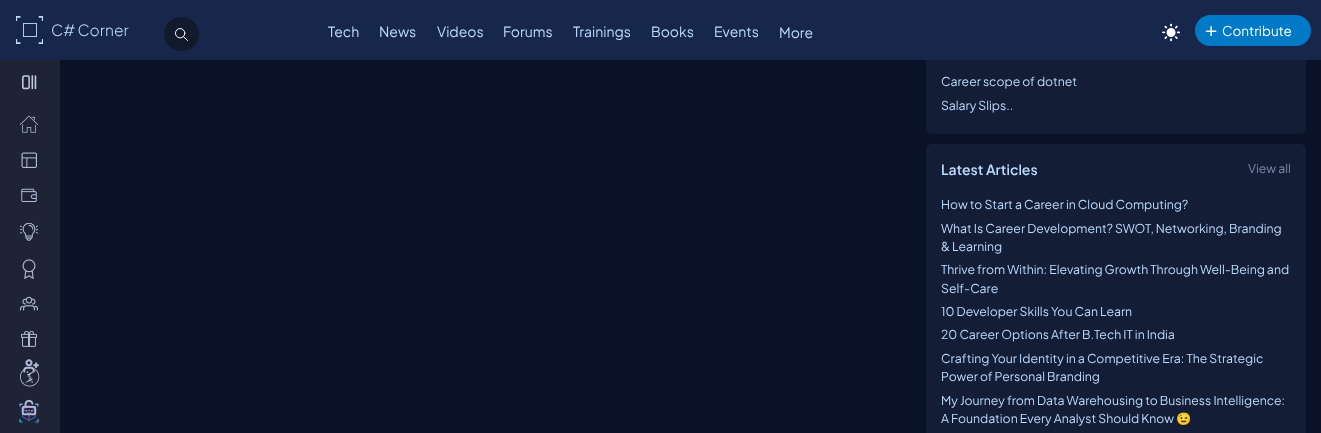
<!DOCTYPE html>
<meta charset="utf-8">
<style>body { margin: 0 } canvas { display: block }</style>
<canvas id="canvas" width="1321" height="433"></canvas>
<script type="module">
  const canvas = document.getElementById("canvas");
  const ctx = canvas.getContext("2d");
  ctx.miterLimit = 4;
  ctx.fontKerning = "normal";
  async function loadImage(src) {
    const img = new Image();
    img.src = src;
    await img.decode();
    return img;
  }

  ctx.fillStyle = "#091227";
  ctx.fillRect(0, 0, 1321, 433);
  ctx.fillStyle = "#141d36";
  ctx.beginPath();
  ctx.roundRect(926, -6, 380, 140, 6);
  ctx.fill();
  ctx.fillStyle = "#17264b";
  ctx.fillRect(0, 0, 1321, 60);
  ctx.drawImage(await loadImage("img1.png"), 16, 16, 28, 28);
  ctx.strokeStyle = "#bcdbfe";
  ctx.lineWidth = 0.7;
  ctx.strokeRect(23.35, 23.35, 13.3, 13.3);
  ctx.strokeRect(23.35, 23.35, 13.3, 13.3);
  ctx.font = "300 15.5px Plus Jakarta Sans";
  ctx.fillStyle = "#bcdbfe";
  ctx.fillText("C# Corner", 51, 36);
  ctx.fillStyle = "#12192d";
  ctx.beginPath();
  ctx.roundRect(164, 17, 35, 34, 17);
  ctx.fill();
  ctx.drawImage(await loadImage("img2.png"), 175, 28, 13, 13);
  ctx.font = "14px Plus Jakarta Sans";
  ctx.fillStyle = "#bcdbfe";
  ctx.fillText("Tech", 328, 37);
  ctx.fillText("News", 379, 37);
  ctx.fillText("Videos", 437, 37);
  ctx.fillText("Forums", 503, 37);
  ctx.fillText("Trainings", 573, 37);
  ctx.fillText("Books", 651, 37);
  ctx.fillText("Events", 714, 37);
  ctx.fillText("More", 779, 38);
  ctx.drawImage(await loadImage("img3.png"), 1162, 23, 18, 19);
  ctx.fillStyle = "#0079c7";
  ctx.beginPath();
  ctx.roundRect(1195, 15, 116, 31, 15.5);
  ctx.fill();
  ctx.drawImage(await loadImage("img4.png"), 1205, 26, 12, 10);
  ctx.font = "13.5px Plus Jakarta Sans";
  ctx.fillStyle = "#ffffff";
  ctx.fillText("Contribute", 1222, 36);
  ctx.fillStyle = "#1e2435";
  ctx.fillRect(0, 60, 60, 373);
  ctx.drawImage(await loadImage("img5.png"), 22, 75, 15, 15);
  ctx.drawImage(await loadImage("img6.png"), 20, 115, 18, 18);
  ctx.drawImage(await loadImage("img7.png"), 21, 152, 16, 16);
  ctx.drawImage(await loadImage("img8.png"), 21, 188, 16, 14);
  ctx.drawImage(await loadImage("img9.png"), 20, 223, 18, 18);
  ctx.drawImage(await loadImage("img10.png"), 22, 259, 14, 20);
  ctx.drawImage(await loadImage("img11.png"), 20, 296, 18, 15);
  ctx.drawImage(await loadImage("img12.png"), 21, 331, 16, 16);
  ctx.drawImage(await loadImage("img13.png"), 20, 367, 20, 20);
  ctx.drawImage(await loadImage("img14.png"), 19, 403, 20, 20);
  ctx.drawImage(await loadImage("img15.png"), 23, 359, 16, 14);
  ctx.drawImage(await loadImage("img16.png"), 21, 399, 16, 17);
  ctx.font = "12.25px Plus Jakarta Sans";
  ctx.fillStyle = "#bcdbfe";
  ctx.fillText("Career scope of dotnet", 941, 86);
  ctx.fillText("Salary Slips..", 941, 110);
  ctx.fillStyle = "#141d36";
  ctx.beginPath();
  ctx.roundRect(926, 144, 380, 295, 6);
  ctx.fill();
  ctx.font = "600 14px Plus Jakarta Sans";
  ctx.fillStyle = "#bcdbfe";
  ctx.fillText("Latest Articles", 941, 175);
  ctx.font = "12.25px Plus Jakarta Sans";
  ctx.fillStyle = "#7f8aab";
  ctx.fillText("View all", 1248, 173);
  ctx.fillStyle = "#bcdbfe";
  ctx.fillText("How to Start a Career in Cloud Computing?", 941, 209);
  ctx.fillText("What Is Career Development? SWOT, Networking, Branding", 941, 233);
  ctx.fillText("& Learning", 941, 251);
  ctx.fillText("Thrive from Within: Elevating Growth Through Well-Being and", 941, 274);
  ctx.fillText("Self-Care", 941, 293);
  ctx.fillText("10 Developer Skills You Can Learn", 941, 316);
  ctx.fillText("20 Career Options After B.Tech IT in India", 941, 339);
  ctx.fillText("Crafting Your Identity in a Competitive Era: The Strategic", 941, 363);
  ctx.fillText("Power of Personal Branding", 941, 381);
  ctx.fillText("My Journey from Data Warehousing to Business Intelligence:", 941, 405);
  ctx.fillText("A Foundation Every Analyst Should Know", 941, 423);
  ctx.font = "12.25px Noto Color Emoji";
  ctx.fillText("😉", 1176, 423);
</script>
